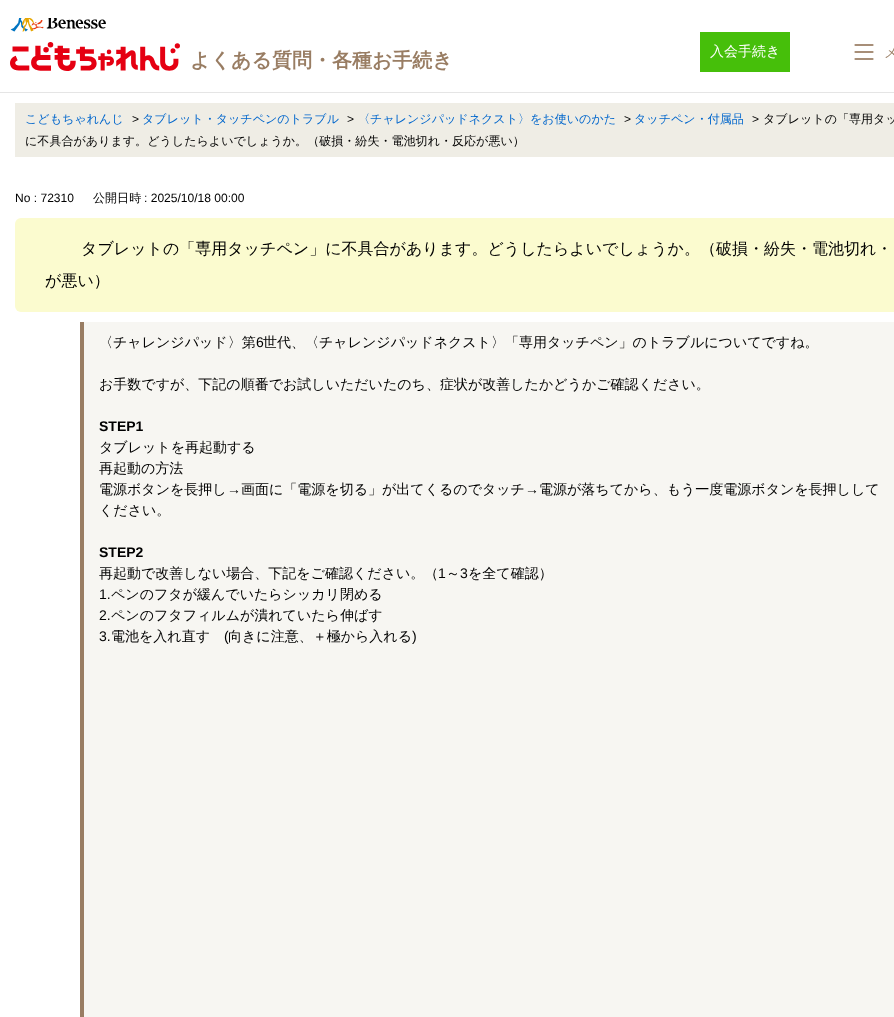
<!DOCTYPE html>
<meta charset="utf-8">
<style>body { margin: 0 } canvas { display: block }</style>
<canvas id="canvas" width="894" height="1017"></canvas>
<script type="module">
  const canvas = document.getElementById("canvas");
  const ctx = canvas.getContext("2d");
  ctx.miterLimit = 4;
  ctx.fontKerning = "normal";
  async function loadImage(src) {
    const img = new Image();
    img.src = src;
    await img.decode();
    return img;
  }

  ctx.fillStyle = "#ffffff";
  ctx.fillRect(0, 0, 894, 1017);
  ctx.drawImage(await loadImage("img1.png"), 10, 18, 96, 14);
  ctx.drawImage(await loadImage("img2.png"), 10, 42, 170, 29);
  ctx.font = "bold 20px WenQuanYi Zen Hei";
  ctx.fillStyle = "#997d63";
  ctx.fillText("よくある質問・各種お手続き", 190, 67);
  ctx.fillStyle = "#46bf0a";
  ctx.fillRect(700, 32, 90, 40);
  ctx.font = "500 14px WenQuanYi Zen Hei";
  ctx.fillStyle = "#ffffff";
  ctx.fillText("入会手続き", 710, 56);
  ctx.drawImage(await loadImage("img3.png"), 854, 44, 20, 16);
  ctx.fillStyle = "#997d63";
  ctx.fillText("メ", 884, 57);
  ctx.fillStyle = "#e5e5e5";
  ctx.fillRect(0, 92, 894, 1);
  ctx.fillStyle = "#efede5";
  ctx.fillRect(15, 103, 879, 54);
  ctx.font = "500 12.05px WenQuanYi Zen Hei";
  ctx.fillStyle = "#0066cc";
  ctx.fillText("こどもちゃれんじ", 25, 123);
  ctx.font = "12.05px Liberation Sans";
  ctx.fillStyle = "#000000";
  ctx.fillText(">", 132, 123);
  ctx.font = "500 12.05px WenQuanYi Zen Hei";
  ctx.fillStyle = "#0066cc";
  ctx.fillText("タブレット・タッチペンのトラブル", 142, 123);
  ctx.font = "12.05px Liberation Sans";
  ctx.fillStyle = "#000000";
  ctx.fillText(">", 347, 123);
  ctx.font = "500 12.05px WenQuanYi Zen Hei";
  ctx.fillStyle = "#0066cc";
  ctx.fillText("〈チャレンジパッドネクスト〉をお使いのかた", 358, 123);
  ctx.font = "12.05px Liberation Sans";
  ctx.fillStyle = "#000000";
  ctx.fillText(">", 624, 123);
  ctx.font = "500 12.05px WenQuanYi Zen Hei";
  ctx.fillStyle = "#0066cc";
  ctx.fillText("タッチペン・付属品", 634, 123);
  ctx.font = "12.05px Liberation Sans";
  ctx.fillStyle = "#000000";
  ctx.fillText(">", 752, 123);
  ctx.font = "500 12.05px WenQuanYi Zen Hei";
  ctx.fillText("タブレットの「専用タッ", 763, 123);
  ctx.fillText("に不具合があります。どうしたらよいでしょうか。（破損・紛失・電池切れ・反応が悪い）", 25, 145);
  ctx.font = "12.05px Liberation Sans";
  ctx.fillText("No : 72310", 15, 202);
  ctx.font = "500 12.05px WenQuanYi Zen Hei";
  ctx.fillText("公開日時", 93, 202);
  ctx.font = "12.05px Liberation Sans";
  ctx.fillText(": 2025/10/18 00:00", 144, 202);
  ctx.fillStyle = "#fbfbcf";
  ctx.beginPath();
  ctx.roundRect(15, 218, 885, 94, 6);
  ctx.fill();
  ctx.font = "500 16px WenQuanYi Zen Hei";
  ctx.fillStyle = "#000000";
  ctx.fillText("タブレットの「専用タッチペン」に不具合があります。どうしたらよいでしょうか。（破損・紛失・電池切れ・", 81, 254);
  ctx.fillText("が悪い）", 45, 286);
  ctx.fillStyle = "#f7f6f2";
  ctx.fillRect(84, 322, 810, 695);
  ctx.fillStyle = "#997d63";
  ctx.fillRect(80, 322, 4, 695);
  ctx.font = "500 14px WenQuanYi Zen Hei";
  ctx.fillStyle = "#000000";
  ctx.fillText("〈チャレンジパッド〉第", 99, 347);
  ctx.font = "14px Liberation Sans";
  ctx.fillText("6", 256, 347);
  ctx.font = "500 14px WenQuanYi Zen Hei";
  ctx.fillText("世代、〈チャレンジパッドネクスト〉「専用タッチペン」のトラブルについてですね。", 263, 347);
  ctx.fillText("お手数ですが、下記の順番でお試しいただいたのち、症状が改善したかどうかご確認ください。", 99, 389);
  ctx.font = "bold 14px Liberation Sans";
  ctx.fillText("STEP1", 99, 431);
  ctx.font = "500 14px WenQuanYi Zen Hei";
  ctx.fillText("タブレットを再起動する", 99, 452);
  ctx.fillText("再起動の方法", 99, 473);
  ctx.fillText("電源ボタンを長押し", 99, 494);
  ctx.font = "14px Liberation Sans";
  ctx.fillText("→", 227, 494);
  ctx.font = "500 14px WenQuanYi Zen Hei";
  ctx.fillText("画面に「電源を切る」が出てくるのでタッチ", 241, 494);
  ctx.font = "14px Liberation Sans";
  ctx.fillText("→", 525, 494);
  ctx.font = "500 14px WenQuanYi Zen Hei";
  ctx.fillText("電源が落ちてから、もう一度電源ボタンを長押しして", 539, 494);
  ctx.fillText("ください。", 99, 515);
  ctx.font = "bold 14px Liberation Sans";
  ctx.fillText("STEP2", 99, 557);
  ctx.font = "500 14px WenQuanYi Zen Hei";
  ctx.fillText("再起動で改善しない場合、下記をご確認ください。（", 99, 578);
  ctx.font = "14px Liberation Sans";
  ctx.fillText("1", 438, 578);
  ctx.font = "500 14px WenQuanYi Zen Hei";
  ctx.fillText("～", 446, 578);
  ctx.font = "14px Liberation Sans";
  ctx.fillText("3", 460, 578);
  ctx.font = "500 14px WenQuanYi Zen Hei";
  ctx.fillText("を全て確認）", 468, 578);
  ctx.font = "14px Liberation Sans";
  ctx.fillText("1.", 99, 599);
  ctx.font = "500 14px WenQuanYi Zen Hei";
  ctx.fillText("ペンのフタが緩んでいたらシッカリ閉める", 111, 599);
  ctx.font = "14px Liberation Sans";
  ctx.fillText("2.", 99, 620);
  ctx.font = "500 14px WenQuanYi Zen Hei";
  ctx.fillText("ペンのフタフィルムが潰れていたら伸ばす", 111, 620);
  ctx.font = "14px Liberation Sans";
  ctx.fillText("3.", 99, 641);
  ctx.font = "500 14px WenQuanYi Zen Hei";
  ctx.fillText("電池を入れ直す", 111, 641);
  ctx.font = "14px Liberation Sans";
  ctx.fillText("(", 224, 641);
  ctx.font = "500 14px WenQuanYi Zen Hei";
  ctx.fillText("向きに注意、＋極から入れる", 228, 641);
  ctx.font = "14px Liberation Sans";
  ctx.fillText(")", 412, 641);
</script>
